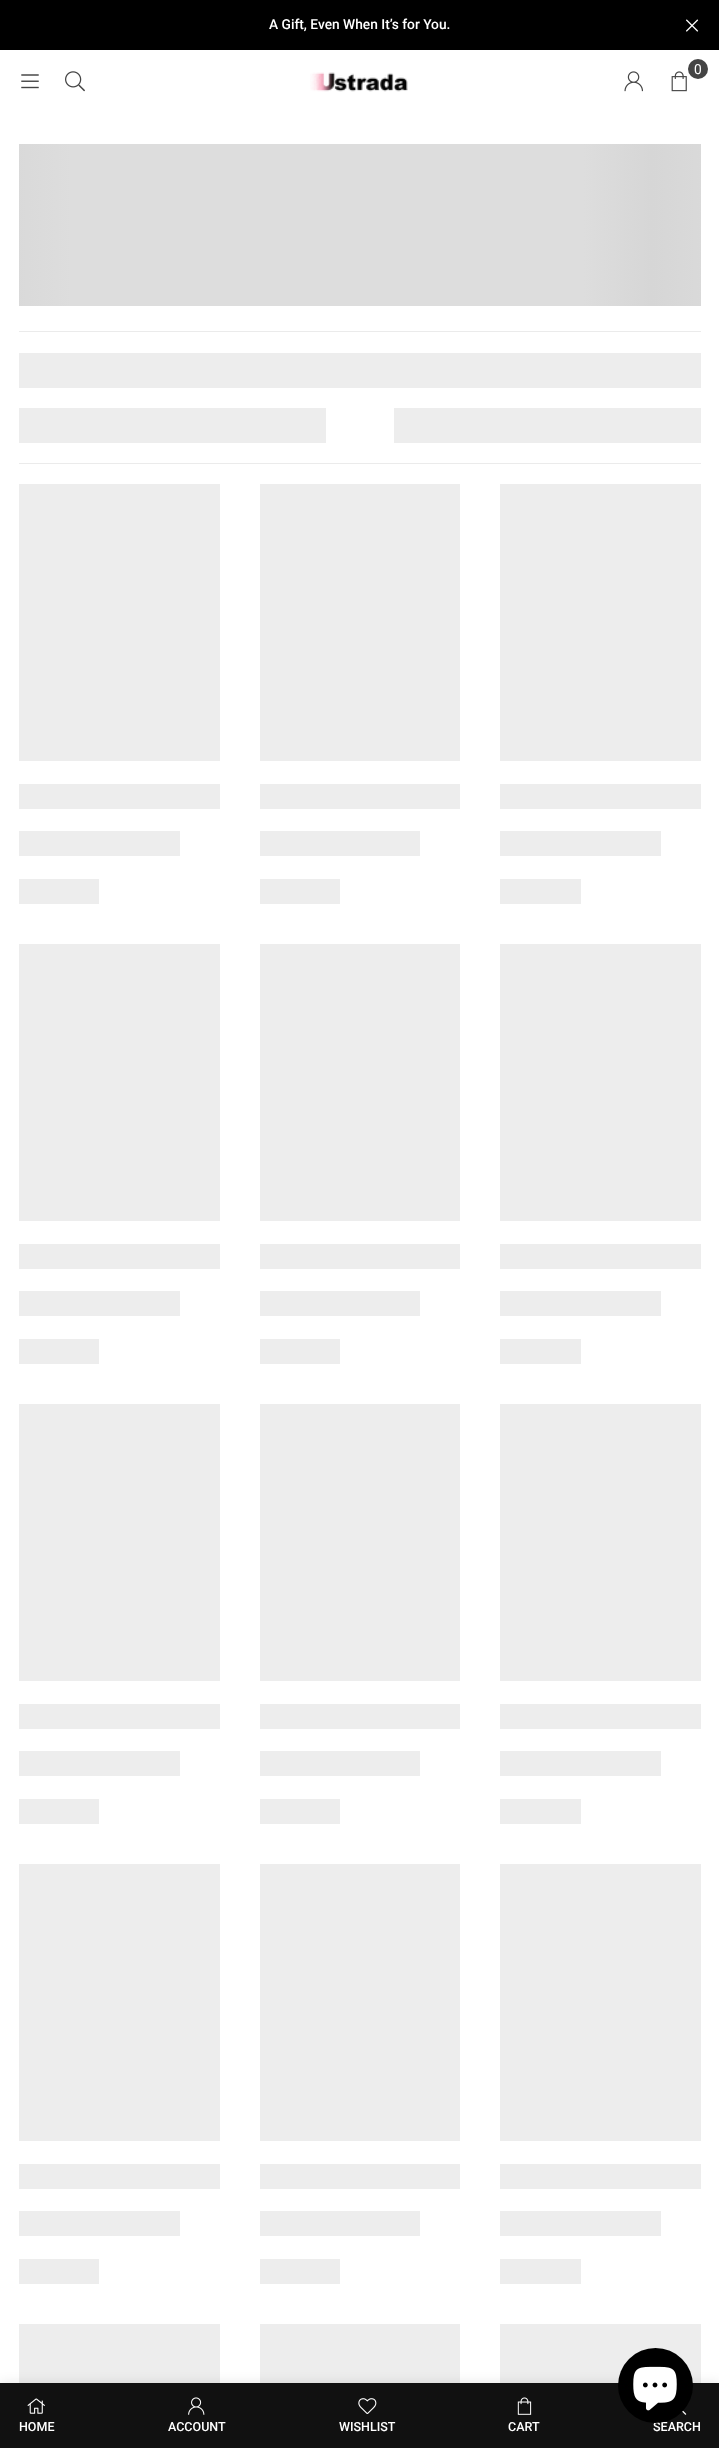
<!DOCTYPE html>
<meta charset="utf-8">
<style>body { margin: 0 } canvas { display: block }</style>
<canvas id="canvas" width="719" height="2448"></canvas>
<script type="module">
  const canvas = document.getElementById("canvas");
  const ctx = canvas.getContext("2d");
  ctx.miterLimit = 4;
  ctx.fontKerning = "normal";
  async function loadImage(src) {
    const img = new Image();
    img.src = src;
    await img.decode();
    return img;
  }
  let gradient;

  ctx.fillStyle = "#ffffff";
  ctx.fillRect(0, 0, 719, 2448);
  ctx.fillStyle = "#000000";
  ctx.fillRect(0, 0, 719, 50);
  ctx.font = "500 13.75px Roboto";
  ctx.fillStyle = "#ffffff";
  ctx.fillText("A Gift, Even When It’s for You.", 269, 29);
  ctx.drawImage(await loadImage("img1.png"), 686, 19, 13, 13);
  ctx.fillStyle = "#444444";
  ctx.beginPath();
  ctx.arc(698, 69, 10, 0, Math.PI * 2);
  ctx.fill();
  ctx.font = "13.75px Roboto";
  ctx.fillStyle = "#ffffff";
  ctx.fillText("0", 694, 74);
  ctx.drawImage(await loadImage("img2.png"), 671, 71, 16, 21);
  ctx.drawImage(await loadImage("img3.png"), 624, 71, 19, 21);
  ctx.drawImage(await loadImage("img4.png"), 21, 74, 18, 15);
  ctx.drawImage(await loadImage("img5.png"), 65, 71, 20, 21);
  ctx.drawImage(await loadImage("img6.png"), 310, 72, 98, 20);
  gradient = ctx.createLinearGradient(-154, 144, 529, 144);
  gradient.addColorStop(0.08, "#dddddd");
  gradient.addColorStop(0.18, "#d6d6d6");
  gradient.addColorStop(0.33, "#dddddd");
  ctx.fillStyle = gradient;
  ctx.fillRect(19, 144, 510, 162);
  gradient = ctx.createLinearGradient(529, 144, 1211, 144);
  gradient.addColorStop(0.08, "#dddddd");
  gradient.addColorStop(0.18, "#d6d6d6");
  gradient.addColorStop(0.33, "#dddddd");
  ctx.fillStyle = gradient;
  ctx.fillRect(529, 144, 172, 162);
  ctx.fillStyle = "#ebebeb";
  ctx.fillRect(19, 331, 682, 1);
  ctx.fillRect(19, 463, 682, 1);
  ctx.fillStyle = "#ededed";
  ctx.fillRect(19, 353, 682, 35);
  ctx.fillRect(19, 408, 307, 35);
  ctx.fillRect(394, 408, 307, 35);
  ctx.fillRect(19, 484, 201, 277);
  ctx.fillRect(19, 784, 201, 25);
  ctx.fillRect(19, 831, 161, 25);
  ctx.fillRect(19, 879, 80, 25);
  ctx.fillRect(260, 484, 200, 277);
  ctx.fillRect(260, 784, 200, 25);
  ctx.fillRect(260, 831, 160, 25);
  ctx.fillRect(260, 879, 80, 25);
  ctx.fillRect(500, 484, 201, 277);
  ctx.fillRect(500, 784, 201, 25);
  ctx.fillRect(500, 831, 161, 25);
  ctx.fillRect(500, 879, 81, 25);
  ctx.fillRect(19, 944, 201, 277);
  ctx.fillRect(19, 1244, 201, 25);
  ctx.fillRect(19, 1291, 161, 25);
  ctx.fillRect(19, 1339, 80, 25);
  ctx.fillRect(260, 944, 200, 277);
  ctx.fillRect(260, 1244, 200, 25);
  ctx.fillRect(260, 1291, 160, 25);
  ctx.fillRect(260, 1339, 80, 25);
  ctx.fillRect(500, 944, 201, 277);
  ctx.fillRect(500, 1244, 201, 25);
  ctx.fillRect(500, 1291, 161, 25);
  ctx.fillRect(500, 1339, 81, 25);
  ctx.fillRect(19, 1404, 201, 277);
  ctx.fillRect(19, 1704, 201, 25);
  ctx.fillRect(19, 1751, 161, 25);
  ctx.fillRect(19, 1799, 80, 25);
  ctx.fillRect(260, 1404, 200, 277);
  ctx.fillRect(260, 1704, 200, 25);
  ctx.fillRect(260, 1751, 160, 25);
  ctx.fillRect(260, 1799, 80, 25);
  ctx.fillRect(500, 1404, 201, 277);
  ctx.fillRect(500, 1704, 201, 25);
  ctx.fillRect(500, 1751, 161, 25);
  ctx.fillRect(500, 1799, 81, 25);
  ctx.fillRect(19, 1864, 201, 277);
  ctx.fillRect(19, 2164, 201, 25);
  ctx.fillRect(19, 2211, 161, 25);
  ctx.fillRect(19, 2259, 80, 25);
  ctx.fillRect(260, 1864, 200, 277);
  ctx.fillRect(260, 2164, 200, 25);
  ctx.fillRect(260, 2211, 160, 25);
  ctx.fillRect(260, 2259, 80, 25);
  ctx.fillRect(500, 1864, 201, 277);
  ctx.fillRect(500, 2164, 201, 25);
  ctx.fillRect(500, 2211, 161, 25);
  ctx.fillRect(500, 2259, 81, 25);
  ctx.fillRect(19, 2324, 201, 59);
  ctx.fillRect(260, 2324, 200, 59);
  ctx.fillRect(500, 2324, 201, 59);
  ctx.fillStyle = "rgba(0, 0, 0, 0.1)";
  ctx.filter = "blur(6px)";
  ctx.beginPath();
  ctx.rect(0, 2383, 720, 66);
  ctx.fill();
  ctx.filter = "none";
  ctx.fillStyle = "#111111";
  ctx.fillRect(0, 2383, 719, 65);
  ctx.drawImage(await loadImage("img12.png"), 682, 2410, 5, 5);
  ctx.font = "500 12.5px Roboto";
  ctx.fillStyle = "#ffffff";
  ctx.fillText("SEARCH", 653, 2431);
  ctx.fillStyle = "#000000";
  ctx.beginPath();
  ctx.arc(655.5, 2385.5, 37.5, 0, Math.PI * 2);
  ctx.fill();
  ctx.drawImage(await loadImage("img7.png"), 633, 2366, 44, 45);
  ctx.drawImage(await loadImage("img8.png"), 27, 2398, 18, 16);
  ctx.fillStyle = "#ffffff";
  ctx.fillText("HOME", 19, 2431);
  ctx.drawImage(await loadImage("img9.png"), 188, 2397, 17, 18);
  ctx.fillText("ACCOUNT", 168, 2431);
  ctx.drawImage(await loadImage("img10.png"), 358, 2398, 19, 16);
  ctx.fillText("WISHLIST", 339, 2431);
  ctx.drawImage(await loadImage("img11.png"), 517, 2397, 15, 18);
  ctx.fillText("CART", 508, 2431);
</script>
